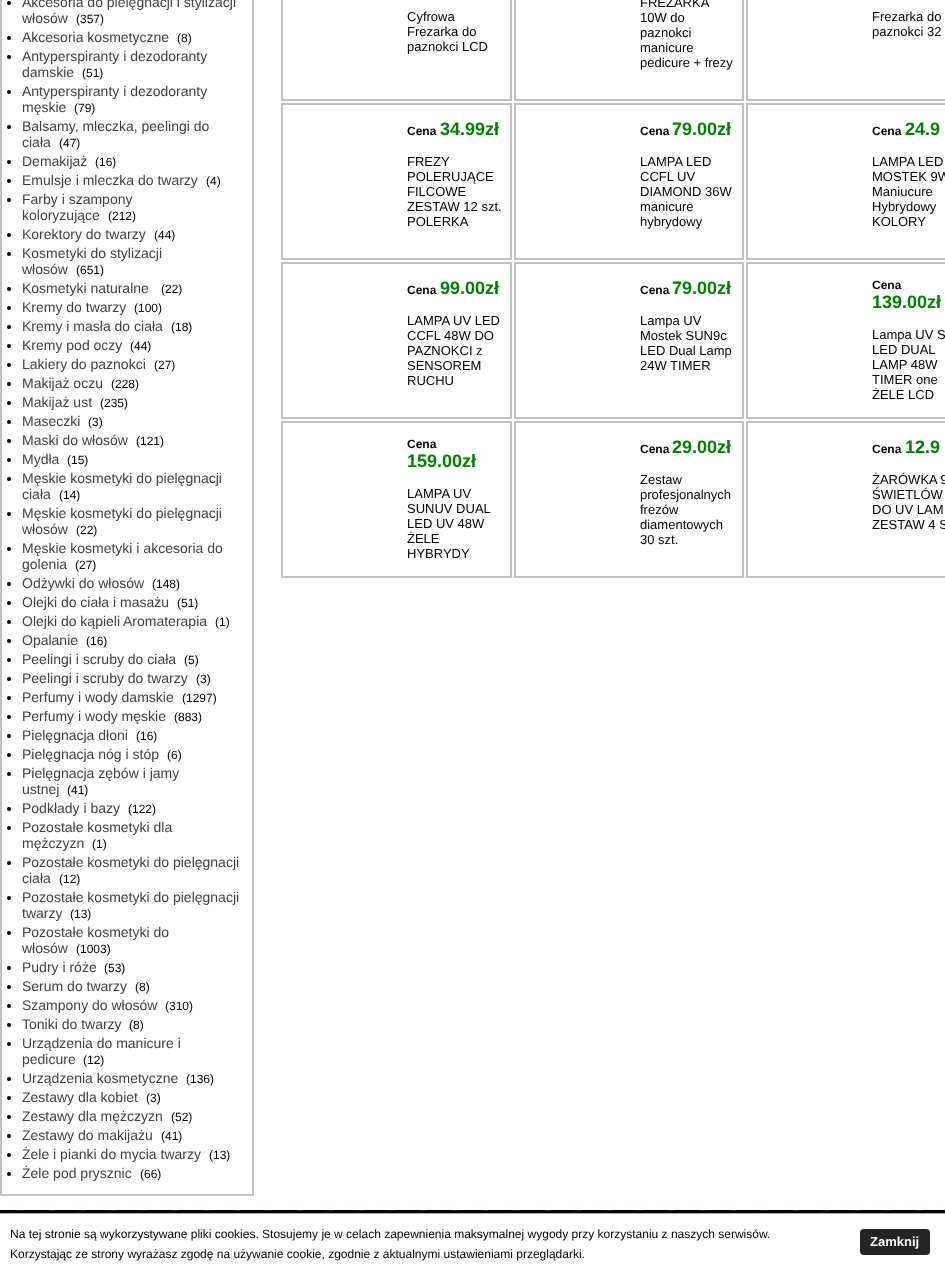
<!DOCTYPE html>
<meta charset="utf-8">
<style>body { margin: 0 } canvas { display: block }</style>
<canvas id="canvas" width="945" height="1274"></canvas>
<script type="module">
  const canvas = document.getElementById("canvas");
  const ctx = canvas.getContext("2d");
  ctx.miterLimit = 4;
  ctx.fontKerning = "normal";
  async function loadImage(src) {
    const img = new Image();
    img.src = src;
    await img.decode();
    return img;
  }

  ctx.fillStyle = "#ffffff";
  ctx.fillRect(0, 0, 945, 1274);
  ctx.strokeStyle = "#c1c1c1";
  ctx.lineWidth = 2;
  ctx.strokeRect(1, -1, 252, 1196);
  ctx.fillStyle = "#000000";
  ctx.beginPath();
  ctx.arc(9, 3, 2, 0, Math.PI * 2);
  ctx.fill();
  ctx.font = "14px Liberation Sans";
  ctx.fillStyle = "#3f3f3f";
  ctx.fillText("Akcesoria do pielęgnacji i stylizacji", 22, 7);
  ctx.fillText("włosów", 22, 23);
  ctx.font = "12px Liberation Sans";
  ctx.fillStyle = "#000000";
  ctx.fillText("(357)", 76, 23);
  ctx.beginPath();
  ctx.arc(9, 38, 2, 0, Math.PI * 2);
  ctx.fill();
  ctx.font = "14px Liberation Sans";
  ctx.fillStyle = "#3f3f3f";
  ctx.fillText("Akcesoria kosmetyczne", 22, 42);
  ctx.font = "12px Liberation Sans";
  ctx.fillStyle = "#000000";
  ctx.fillText("(8)", 177, 42);
  ctx.beginPath();
  ctx.arc(9, 57, 2, 0, Math.PI * 2);
  ctx.fill();
  ctx.font = "14px Liberation Sans";
  ctx.fillStyle = "#3f3f3f";
  ctx.fillText("Antyperspiranty i dezodoranty", 22, 61);
  ctx.fillText("damskie", 22, 77);
  ctx.font = "12px Liberation Sans";
  ctx.fillStyle = "#000000";
  ctx.fillText("(51)", 82, 77);
  ctx.beginPath();
  ctx.arc(9, 92, 2, 0, Math.PI * 2);
  ctx.fill();
  ctx.font = "14px Liberation Sans";
  ctx.fillStyle = "#3f3f3f";
  ctx.fillText("Antyperspiranty i dezodoranty", 22, 96);
  ctx.fillText("męskie", 22, 112);
  ctx.font = "12px Liberation Sans";
  ctx.fillStyle = "#000000";
  ctx.fillText("(79)", 74, 112);
  ctx.beginPath();
  ctx.arc(9, 127, 2, 0, Math.PI * 2);
  ctx.fill();
  ctx.font = "14px Liberation Sans";
  ctx.fillStyle = "#3f3f3f";
  ctx.fillText("Balsamy, mleczka, peelingi do", 22, 131);
  ctx.fillText("ciała", 22, 147);
  ctx.font = "12px Liberation Sans";
  ctx.fillStyle = "#000000";
  ctx.fillText("(47)", 59, 147);
  ctx.beginPath();
  ctx.arc(9, 162, 2, 0, Math.PI * 2);
  ctx.fill();
  ctx.font = "14px Liberation Sans";
  ctx.fillStyle = "#3f3f3f";
  ctx.fillText("Demakijaż", 22, 166);
  ctx.font = "12px Liberation Sans";
  ctx.fillStyle = "#000000";
  ctx.fillText("(16)", 95, 166);
  ctx.beginPath();
  ctx.arc(9, 181, 2, 0, Math.PI * 2);
  ctx.fill();
  ctx.font = "14px Liberation Sans";
  ctx.fillStyle = "#3f3f3f";
  ctx.fillText("Emulsje i mleczka do twarzy", 22, 185);
  ctx.font = "12px Liberation Sans";
  ctx.fillStyle = "#000000";
  ctx.fillText("(4)", 206, 185);
  ctx.beginPath();
  ctx.arc(9, 200, 2, 0, Math.PI * 2);
  ctx.fill();
  ctx.font = "14px Liberation Sans";
  ctx.fillStyle = "#3f3f3f";
  ctx.fillText("Farby i szampony", 22, 204);
  ctx.fillText("koloryzujące", 22, 220);
  ctx.font = "12px Liberation Sans";
  ctx.fillStyle = "#000000";
  ctx.fillText("(212)", 108, 220);
  ctx.beginPath();
  ctx.arc(9, 235, 2, 0, Math.PI * 2);
  ctx.fill();
  ctx.font = "14px Liberation Sans";
  ctx.fillStyle = "#3f3f3f";
  ctx.fillText("Korektory do twarzy", 22, 239);
  ctx.font = "12px Liberation Sans";
  ctx.fillStyle = "#000000";
  ctx.fillText("(44)", 154, 239);
  ctx.beginPath();
  ctx.arc(9, 254, 2, 0, Math.PI * 2);
  ctx.fill();
  ctx.font = "14px Liberation Sans";
  ctx.fillStyle = "#3f3f3f";
  ctx.fillText("Kosmetyki do stylizacji", 22, 258);
  ctx.fillText("włosów", 22, 274);
  ctx.font = "12px Liberation Sans";
  ctx.fillStyle = "#000000";
  ctx.fillText("(651)", 76, 274);
  ctx.beginPath();
  ctx.arc(9, 289, 2, 0, Math.PI * 2);
  ctx.fill();
  ctx.font = "14px Liberation Sans";
  ctx.fillStyle = "#3f3f3f";
  ctx.fillText("Kosmetyki naturalne", 22, 293);
  ctx.font = "12px Liberation Sans";
  ctx.fillStyle = "#000000";
  ctx.fillText("(22)", 161, 293);
  ctx.beginPath();
  ctx.arc(9, 308, 2, 0, Math.PI * 2);
  ctx.fill();
  ctx.font = "14px Liberation Sans";
  ctx.fillStyle = "#3f3f3f";
  ctx.fillText("Kremy do twarzy", 22, 312);
  ctx.font = "12px Liberation Sans";
  ctx.fillStyle = "#000000";
  ctx.fillText("(100)", 134, 312);
  ctx.beginPath();
  ctx.arc(9, 327, 2, 0, Math.PI * 2);
  ctx.fill();
  ctx.font = "14px Liberation Sans";
  ctx.fillStyle = "#3f3f3f";
  ctx.fillText("Kremy i masła do ciała", 22, 331);
  ctx.font = "12px Liberation Sans";
  ctx.fillStyle = "#000000";
  ctx.fillText("(18)", 171, 331);
  ctx.beginPath();
  ctx.arc(9, 346, 2, 0, Math.PI * 2);
  ctx.fill();
  ctx.font = "14px Liberation Sans";
  ctx.fillStyle = "#3f3f3f";
  ctx.fillText("Kremy pod oczy", 22, 350);
  ctx.font = "12px Liberation Sans";
  ctx.fillStyle = "#000000";
  ctx.fillText("(44)", 130, 350);
  ctx.beginPath();
  ctx.arc(9, 365, 2, 0, Math.PI * 2);
  ctx.fill();
  ctx.font = "14px Liberation Sans";
  ctx.fillStyle = "#3f3f3f";
  ctx.fillText("Lakiery do paznokci", 22, 369);
  ctx.font = "12px Liberation Sans";
  ctx.fillStyle = "#000000";
  ctx.fillText("(27)", 154, 369);
  ctx.beginPath();
  ctx.arc(9, 384, 2, 0, Math.PI * 2);
  ctx.fill();
  ctx.font = "14px Liberation Sans";
  ctx.fillStyle = "#3f3f3f";
  ctx.fillText("Makijaż oczu", 22, 388);
  ctx.font = "12px Liberation Sans";
  ctx.fillStyle = "#000000";
  ctx.fillText("(228)", 111, 388);
  ctx.beginPath();
  ctx.arc(9, 403, 2, 0, Math.PI * 2);
  ctx.fill();
  ctx.font = "14px Liberation Sans";
  ctx.fillStyle = "#3f3f3f";
  ctx.fillText("Makijaż ust", 22, 407);
  ctx.font = "12px Liberation Sans";
  ctx.fillStyle = "#000000";
  ctx.fillText("(235)", 100, 407);
  ctx.beginPath();
  ctx.arc(9, 422, 2, 0, Math.PI * 2);
  ctx.fill();
  ctx.font = "14px Liberation Sans";
  ctx.fillStyle = "#3f3f3f";
  ctx.fillText("Maseczki", 22, 426);
  ctx.font = "12px Liberation Sans";
  ctx.fillStyle = "#000000";
  ctx.fillText("(3)", 88, 426);
  ctx.beginPath();
  ctx.arc(9, 441, 2, 0, Math.PI * 2);
  ctx.fill();
  ctx.font = "14px Liberation Sans";
  ctx.fillStyle = "#3f3f3f";
  ctx.fillText("Maski do włosów", 22, 445);
  ctx.font = "12px Liberation Sans";
  ctx.fillStyle = "#000000";
  ctx.fillText("(121)", 136, 445);
  ctx.beginPath();
  ctx.arc(9, 460, 2, 0, Math.PI * 2);
  ctx.fill();
  ctx.font = "14px Liberation Sans";
  ctx.fillStyle = "#3f3f3f";
  ctx.fillText("Mydła", 22, 464);
  ctx.font = "12px Liberation Sans";
  ctx.fillStyle = "#000000";
  ctx.fillText("(15)", 67, 464);
  ctx.beginPath();
  ctx.arc(9, 479, 2, 0, Math.PI * 2);
  ctx.fill();
  ctx.font = "14px Liberation Sans";
  ctx.fillStyle = "#3f3f3f";
  ctx.fillText("Męskie kosmetyki do pielęgnacji", 22, 483);
  ctx.fillText("ciała", 22, 499);
  ctx.font = "12px Liberation Sans";
  ctx.fillStyle = "#000000";
  ctx.fillText("(14)", 59, 499);
  ctx.beginPath();
  ctx.arc(9, 514, 2, 0, Math.PI * 2);
  ctx.fill();
  ctx.font = "14px Liberation Sans";
  ctx.fillStyle = "#3f3f3f";
  ctx.fillText("Męskie kosmetyki do pielęgnacji", 22, 518);
  ctx.fillText("włosów", 22, 534);
  ctx.font = "12px Liberation Sans";
  ctx.fillStyle = "#000000";
  ctx.fillText("(22)", 76, 534);
  ctx.beginPath();
  ctx.arc(9, 549, 2, 0, Math.PI * 2);
  ctx.fill();
  ctx.font = "14px Liberation Sans";
  ctx.fillStyle = "#3f3f3f";
  ctx.fillText("Męskie kosmetyki i akcesoria do", 22, 553);
  ctx.fillText("golenia", 22, 569);
  ctx.font = "12px Liberation Sans";
  ctx.fillStyle = "#000000";
  ctx.fillText("(27)", 75, 569);
  ctx.beginPath();
  ctx.arc(9, 584, 2, 0, Math.PI * 2);
  ctx.fill();
  ctx.font = "14px Liberation Sans";
  ctx.fillStyle = "#3f3f3f";
  ctx.fillText("Odżywki do włosów", 22, 588);
  ctx.font = "12px Liberation Sans";
  ctx.fillStyle = "#000000";
  ctx.fillText("(148)", 152, 588);
  ctx.beginPath();
  ctx.arc(9, 603, 2, 0, Math.PI * 2);
  ctx.fill();
  ctx.font = "14px Liberation Sans";
  ctx.fillStyle = "#3f3f3f";
  ctx.fillText("Olejki do ciała i masażu", 22, 607);
  ctx.font = "12px Liberation Sans";
  ctx.fillStyle = "#000000";
  ctx.fillText("(51)", 177, 607);
  ctx.beginPath();
  ctx.arc(9, 622, 2, 0, Math.PI * 2);
  ctx.fill();
  ctx.font = "14px Liberation Sans";
  ctx.fillStyle = "#3f3f3f";
  ctx.fillText("Olejki do kąpieli", 22, 626);
  ctx.fillText("Aromaterapia", 123, 626);
  ctx.font = "12px Liberation Sans";
  ctx.fillStyle = "#000000";
  ctx.fillText("(1)", 215, 626);
  ctx.beginPath();
  ctx.arc(9, 641, 2, 0, Math.PI * 2);
  ctx.fill();
  ctx.font = "14px Liberation Sans";
  ctx.fillStyle = "#3f3f3f";
  ctx.fillText("Opalanie", 22, 645);
  ctx.font = "12px Liberation Sans";
  ctx.fillStyle = "#000000";
  ctx.fillText("(16)", 86, 645);
  ctx.beginPath();
  ctx.arc(9, 660, 2, 0, Math.PI * 2);
  ctx.fill();
  ctx.font = "14px Liberation Sans";
  ctx.fillStyle = "#3f3f3f";
  ctx.fillText("Peelingi i scruby do ciała", 22, 664);
  ctx.font = "12px Liberation Sans";
  ctx.fillStyle = "#000000";
  ctx.fillText("(5)", 184, 664);
  ctx.beginPath();
  ctx.arc(9, 679, 2, 0, Math.PI * 2);
  ctx.fill();
  ctx.font = "14px Liberation Sans";
  ctx.fillStyle = "#3f3f3f";
  ctx.fillText("Peelingi i scruby do twarzy", 22, 683);
  ctx.font = "12px Liberation Sans";
  ctx.fillStyle = "#000000";
  ctx.fillText("(3)", 196, 683);
  ctx.beginPath();
  ctx.arc(9, 698, 2, 0, Math.PI * 2);
  ctx.fill();
  ctx.font = "14px Liberation Sans";
  ctx.fillStyle = "#3f3f3f";
  ctx.fillText("Perfumy i wody damskie", 22, 702);
  ctx.font = "12px Liberation Sans";
  ctx.fillStyle = "#000000";
  ctx.fillText("(1297)", 182, 702);
  ctx.beginPath();
  ctx.arc(9, 717, 2, 0, Math.PI * 2);
  ctx.fill();
  ctx.font = "14px Liberation Sans";
  ctx.fillStyle = "#3f3f3f";
  ctx.fillText("Perfumy i wody męskie", 22, 721);
  ctx.font = "12px Liberation Sans";
  ctx.fillStyle = "#000000";
  ctx.fillText("(883)", 174, 721);
  ctx.beginPath();
  ctx.arc(9, 736, 2, 0, Math.PI * 2);
  ctx.fill();
  ctx.font = "14px Liberation Sans";
  ctx.fillStyle = "#3f3f3f";
  ctx.fillText("Pielęgnacja dłoni", 22, 740);
  ctx.font = "12px Liberation Sans";
  ctx.fillStyle = "#000000";
  ctx.fillText("(16)", 136, 740);
  ctx.beginPath();
  ctx.arc(9, 755, 2, 0, Math.PI * 2);
  ctx.fill();
  ctx.font = "14px Liberation Sans";
  ctx.fillStyle = "#3f3f3f";
  ctx.fillText("Pielęgnacja nóg i stóp", 22, 759);
  ctx.font = "12px Liberation Sans";
  ctx.fillStyle = "#000000";
  ctx.fillText("(6)", 167, 759);
  ctx.beginPath();
  ctx.arc(9, 774, 2, 0, Math.PI * 2);
  ctx.fill();
  ctx.font = "14px Liberation Sans";
  ctx.fillStyle = "#3f3f3f";
  ctx.fillText("Pielęgnacja zębów i jamy", 22, 778);
  ctx.fillText("ustnej", 22, 794);
  ctx.font = "12px Liberation Sans";
  ctx.fillStyle = "#000000";
  ctx.fillText("(41)", 67, 794);
  ctx.beginPath();
  ctx.arc(9, 809, 2, 0, Math.PI * 2);
  ctx.fill();
  ctx.font = "14px Liberation Sans";
  ctx.fillStyle = "#3f3f3f";
  ctx.fillText("Podkłady i bazy", 22, 813);
  ctx.font = "12px Liberation Sans";
  ctx.fillStyle = "#000000";
  ctx.fillText("(122)", 128, 813);
  ctx.beginPath();
  ctx.arc(9, 828, 2, 0, Math.PI * 2);
  ctx.fill();
  ctx.font = "14px Liberation Sans";
  ctx.fillStyle = "#3f3f3f";
  ctx.fillText("Pozostałe kosmetyki dla", 22, 832);
  ctx.fillText("mężczyzn", 22, 848);
  ctx.font = "12px Liberation Sans";
  ctx.fillStyle = "#000000";
  ctx.fillText("(1)", 92, 848);
  ctx.beginPath();
  ctx.arc(9, 863, 2, 0, Math.PI * 2);
  ctx.fill();
  ctx.font = "14px Liberation Sans";
  ctx.fillStyle = "#3f3f3f";
  ctx.fillText("Pozostałe kosmetyki do pielęgnacji", 22, 867);
  ctx.fillText("ciała", 22, 883);
  ctx.font = "12px Liberation Sans";
  ctx.fillStyle = "#000000";
  ctx.fillText("(12)", 59, 883);
  ctx.beginPath();
  ctx.arc(9, 898, 2, 0, Math.PI * 2);
  ctx.fill();
  ctx.font = "14px Liberation Sans";
  ctx.fillStyle = "#3f3f3f";
  ctx.fillText("Pozostałe kosmetyki do pielęgnacji", 22, 902);
  ctx.fillText("twarzy", 22, 918);
  ctx.font = "12px Liberation Sans";
  ctx.fillStyle = "#000000";
  ctx.fillText("(13)", 70, 918);
  ctx.beginPath();
  ctx.arc(9, 933, 2, 0, Math.PI * 2);
  ctx.fill();
  ctx.font = "14px Liberation Sans";
  ctx.fillStyle = "#3f3f3f";
  ctx.fillText("Pozostałe kosmetyki do", 22, 937);
  ctx.fillText("włosów", 22, 953);
  ctx.font = "12px Liberation Sans";
  ctx.fillStyle = "#000000";
  ctx.fillText("(1003)", 76, 953);
  ctx.beginPath();
  ctx.arc(9, 968, 2, 0, Math.PI * 2);
  ctx.fill();
  ctx.font = "14px Liberation Sans";
  ctx.fillStyle = "#3f3f3f";
  ctx.fillText("Pudry i róże", 22, 972);
  ctx.font = "12px Liberation Sans";
  ctx.fillStyle = "#000000";
  ctx.fillText("(53)", 104, 972);
  ctx.beginPath();
  ctx.arc(9, 987, 2, 0, Math.PI * 2);
  ctx.fill();
  ctx.font = "14px Liberation Sans";
  ctx.fillStyle = "#3f3f3f";
  ctx.fillText("Serum do twarzy", 22, 991);
  ctx.font = "12px Liberation Sans";
  ctx.fillStyle = "#000000";
  ctx.fillText("(8)", 135, 991);
  ctx.beginPath();
  ctx.arc(9, 1006, 2, 0, Math.PI * 2);
  ctx.fill();
  ctx.font = "14px Liberation Sans";
  ctx.fillStyle = "#3f3f3f";
  ctx.fillText("Szampony do włosów", 22, 1010);
  ctx.font = "12px Liberation Sans";
  ctx.fillStyle = "#000000";
  ctx.fillText("(310)", 165, 1010);
  ctx.beginPath();
  ctx.arc(9, 1025, 2, 0, Math.PI * 2);
  ctx.fill();
  ctx.font = "14px Liberation Sans";
  ctx.fillStyle = "#3f3f3f";
  ctx.fillText("Toniki do twarzy", 22, 1029);
  ctx.font = "12px Liberation Sans";
  ctx.fillStyle = "#000000";
  ctx.fillText("(8)", 129, 1029);
  ctx.beginPath();
  ctx.arc(9, 1044, 2, 0, Math.PI * 2);
  ctx.fill();
  ctx.font = "14px Liberation Sans";
  ctx.fillStyle = "#3f3f3f";
  ctx.fillText("Urządzenia do manicure i", 22, 1048);
  ctx.fillText("pedicure", 22, 1064);
  ctx.font = "12px Liberation Sans";
  ctx.fillStyle = "#000000";
  ctx.fillText("(12)", 83, 1064);
  ctx.beginPath();
  ctx.arc(9, 1079, 2, 0, Math.PI * 2);
  ctx.fill();
  ctx.font = "14px Liberation Sans";
  ctx.fillStyle = "#3f3f3f";
  ctx.fillText("Urządzenia kosmetyczne", 22, 1083);
  ctx.font = "12px Liberation Sans";
  ctx.fillStyle = "#000000";
  ctx.fillText("(136)", 186, 1083);
  ctx.beginPath();
  ctx.arc(9, 1098, 2, 0, Math.PI * 2);
  ctx.fill();
  ctx.font = "14px Liberation Sans";
  ctx.fillStyle = "#3f3f3f";
  ctx.fillText("Zestawy dla kobiet", 22, 1102);
  ctx.font = "12px Liberation Sans";
  ctx.fillStyle = "#000000";
  ctx.fillText("(3)", 146, 1102);
  ctx.beginPath();
  ctx.arc(9, 1117, 2, 0, Math.PI * 2);
  ctx.fill();
  ctx.font = "14px Liberation Sans";
  ctx.fillStyle = "#3f3f3f";
  ctx.fillText("Zestawy dla mężczyzn", 22, 1121);
  ctx.font = "12px Liberation Sans";
  ctx.fillStyle = "#000000";
  ctx.fillText("(52)", 171, 1121);
  ctx.beginPath();
  ctx.arc(9, 1136, 2, 0, Math.PI * 2);
  ctx.fill();
  ctx.font = "14px Liberation Sans";
  ctx.fillStyle = "#3f3f3f";
  ctx.fillText("Zestawy do makijażu", 22, 1140);
  ctx.font = "12px Liberation Sans";
  ctx.fillStyle = "#000000";
  ctx.fillText("(41)", 161, 1140);
  ctx.beginPath();
  ctx.arc(9, 1155, 2, 0, Math.PI * 2);
  ctx.fill();
  ctx.font = "14px Liberation Sans";
  ctx.fillStyle = "#3f3f3f";
  ctx.fillText("Żele i pianki do mycia twarzy", 22, 1159);
  ctx.font = "12px Liberation Sans";
  ctx.fillStyle = "#000000";
  ctx.fillText("(13)", 209, 1159);
  ctx.beginPath();
  ctx.arc(9, 1174, 2, 0, Math.PI * 2);
  ctx.fill();
  ctx.font = "14px Liberation Sans";
  ctx.fillStyle = "#3f3f3f";
  ctx.fillText("Żele pod prysznic", 22, 1178);
  ctx.font = "12px Liberation Sans";
  ctx.fillStyle = "#000000";
  ctx.fillText("(66)", 140, 1178);
  ctx.strokeRect(282, -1, 229, 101);
  ctx.font = "13px Liberation Sans";
  ctx.fillText("Cyfrowa", 407, 21);
  ctx.fillText("Frezarka do", 407, 36);
  ctx.fillText("paznokci LCD", 407, 51);
  ctx.strokeRect(515, -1, 228, 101);
  ctx.fillText("FREZARKA", 640, 7);
  ctx.fillText("10W do", 640, 22);
  ctx.fillText("paznokci", 640, 37);
  ctx.fillText("manicure", 640, 52);
  ctx.fillText("pedicure + frezy", 640, 67);
  ctx.strokeRect(747, -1, 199, 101);
  ctx.fillText("Frezarka do", 872, 21);
  ctx.fillText("paznokci 32", 872, 36);
  ctx.strokeRect(282, 104, 229, 155);
  ctx.font = "bold 12px Liberation Sans";
  ctx.fillText("Cena", 407, 135);
  ctx.font = "bold 18px Liberation Sans";
  ctx.fillStyle = "#008000";
  ctx.fillText("34.99zł", 440, 135);
  ctx.font = "13px Liberation Sans";
  ctx.fillStyle = "#000000";
  ctx.fillText("FREZY", 407, 166);
  ctx.fillText("POLERUJĄCE", 407, 181);
  ctx.fillText("FILCOWE", 407, 196);
  ctx.fillText("ZESTAW 12 szt.", 407, 211);
  ctx.fillText("POLERKA", 407, 226);
  ctx.strokeRect(515, 104, 228, 155);
  ctx.font = "bold 12px Liberation Sans";
  ctx.fillText("Cena", 640, 135);
  ctx.font = "bold 18px Liberation Sans";
  ctx.fillStyle = "#008000";
  ctx.fillText("79.00zł", 672, 135);
  ctx.font = "13px Liberation Sans";
  ctx.fillStyle = "#000000";
  ctx.fillText("LAMPA LED", 640, 166);
  ctx.fillText("CCFL UV", 640, 181);
  ctx.fillText("DIAMOND 36W", 640, 196);
  ctx.fillText("manicure", 640, 211);
  ctx.fillText("hybrydowy", 640, 226);
  ctx.strokeRect(747, 104, 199, 155);
  ctx.font = "bold 12px Liberation Sans";
  ctx.fillText("Cena", 872, 135);
  ctx.font = "bold 18px Liberation Sans";
  ctx.fillStyle = "#008000";
  ctx.fillText("24.9", 905, 135);
  ctx.font = "13px Liberation Sans";
  ctx.fillStyle = "#000000";
  ctx.fillText("LAMPA LED", 872, 166);
  ctx.fillText("MOSTEK 9W", 872, 181);
  ctx.fillText("Maniucure", 872, 196);
  ctx.fillText("Hybrydowy", 872, 211);
  ctx.fillText("KOLORY", 872, 226);
  ctx.strokeRect(282, 263, 229, 155);
  ctx.font = "bold 12px Liberation Sans";
  ctx.fillText("Cena", 407, 294);
  ctx.font = "bold 18px Liberation Sans";
  ctx.fillStyle = "#008000";
  ctx.fillText("99.00zł", 440, 294);
  ctx.font = "13px Liberation Sans";
  ctx.fillStyle = "#000000";
  ctx.fillText("LAMPA UV LED", 407, 325);
  ctx.fillText("CCFL 48W DO", 407, 340);
  ctx.fillText("PAZNOKCI z", 407, 355);
  ctx.fillText("SENSOREM", 407, 370);
  ctx.fillText("RUCHU", 407, 385);
  ctx.strokeRect(515, 263, 228, 155);
  ctx.font = "bold 12px Liberation Sans";
  ctx.fillText("Cena", 640, 294);
  ctx.font = "bold 18px Liberation Sans";
  ctx.fillStyle = "#008000";
  ctx.fillText("79.00zł", 672, 294);
  ctx.font = "13px Liberation Sans";
  ctx.fillStyle = "#000000";
  ctx.fillText("Lampa UV", 640, 325);
  ctx.fillText("Mostek SUN9c", 640, 340);
  ctx.fillText("LED Dual Lamp", 640, 355);
  ctx.fillText("24W TIMER", 640, 370);
  ctx.strokeRect(747, 263, 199, 155);
  ctx.font = "bold 12px Liberation Sans";
  ctx.fillText("Cena", 872, 289);
  ctx.font = "bold 18px Liberation Sans";
  ctx.fillStyle = "#008000";
  ctx.fillText("139.00zł", 872, 308);
  ctx.font = "13px Liberation Sans";
  ctx.fillStyle = "#000000";
  ctx.fillText("Lampa UV S", 872, 339);
  ctx.fillText("LED DUAL", 872, 354);
  ctx.fillText("LAMP 48W", 872, 369);
  ctx.fillText("TIMER one", 872, 384);
  ctx.fillText("ŻELE LCD", 872, 399);
  ctx.strokeRect(282, 422, 229, 155);
  ctx.font = "bold 12px Liberation Sans";
  ctx.fillText("Cena", 407, 448);
  ctx.font = "bold 18px Liberation Sans";
  ctx.fillStyle = "#008000";
  ctx.fillText("159.00zł", 407, 467);
  ctx.font = "13px Liberation Sans";
  ctx.fillStyle = "#000000";
  ctx.fillText("LAMPA UV", 407, 498);
  ctx.fillText("SUNUV DUAL", 407, 513);
  ctx.fillText("LED UV 48W", 407, 528);
  ctx.fillText("ŻELE", 407, 543);
  ctx.fillText("HYBRYDY", 407, 558);
  ctx.strokeRect(515, 422, 228, 155);
  ctx.font = "bold 12px Liberation Sans";
  ctx.fillText("Cena", 640, 453);
  ctx.font = "bold 18px Liberation Sans";
  ctx.fillStyle = "#008000";
  ctx.fillText("29.00zł", 672, 453);
  ctx.font = "13px Liberation Sans";
  ctx.fillStyle = "#000000";
  ctx.fillText("Zestaw", 640, 484);
  ctx.fillText("profesjonalnych", 640, 499);
  ctx.fillText("frezów", 640, 514);
  ctx.fillText("diamentowych", 640, 529);
  ctx.fillText("30 szt.", 640, 544);
  ctx.strokeRect(747, 422, 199, 155);
  ctx.font = "bold 12px Liberation Sans";
  ctx.fillText("Cena", 872, 453);
  ctx.font = "bold 18px Liberation Sans";
  ctx.fillStyle = "#008000";
  ctx.fillText("12.9", 905, 453);
  ctx.font = "13px Liberation Sans";
  ctx.fillStyle = "#000000";
  ctx.fillText("ŻARÓWKA 9", 872, 484);
  ctx.fillText("ŚWIETLÓW", 872, 499);
  ctx.fillText("DO UV LAM", 872, 514);
  ctx.fillText("ZESTAW 4 S", 872, 529);
  ctx.drawImage(await loadImage("img1.png"), 0, 1201, 945, 12);
  ctx.fillStyle = "#aaaaaa";
  ctx.fillRect(0, 1213, 945, 1);
  ctx.font = "12px Liberation Sans";
  ctx.fillStyle = "#000000";
  ctx.fillText("Na tej stronie są wykorzystywane pliki cookies. Stosujemy je w celach zapewnienia maksymalnej wygody przy korzystaniu z naszych serwisów.", 10, 1238);
  ctx.fillText("Korzystając ze strony wyrażasz zgodę na używanie cookie, zgodnie z aktualnymi ustawieniami przeglądarki.", 10, 1258);
  ctx.fillStyle = "#252425";
  ctx.beginPath();
  ctx.roundRect(860, 1229, 70, 26, 4);
  ctx.fill();
  ctx.font = "bold 13px Liberation Sans";
  ctx.fillStyle = "#ffffff";
  ctx.fillText("Zamknij", 870, 1246);
</script>
